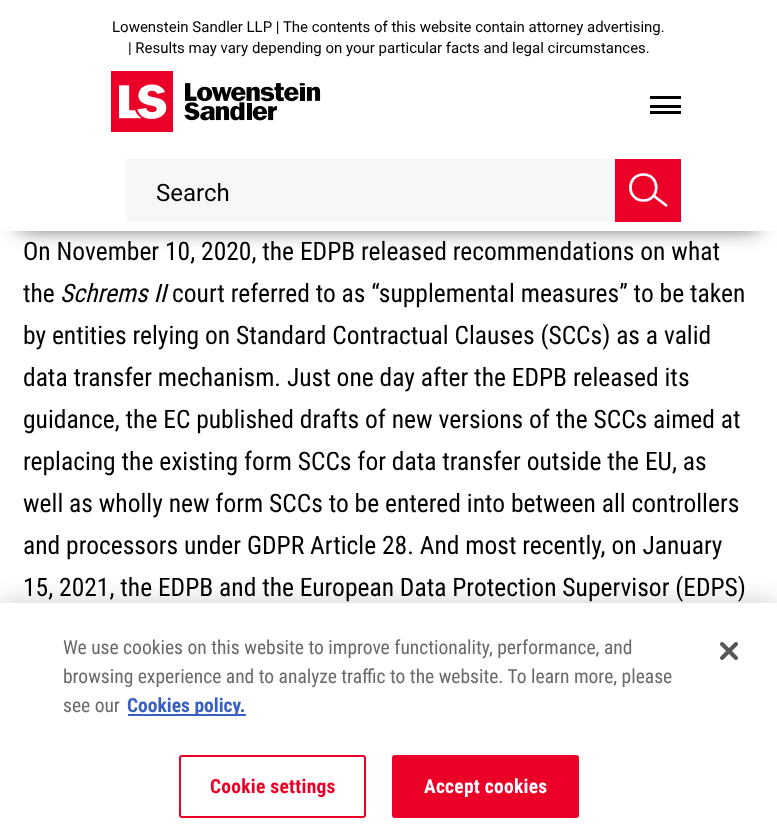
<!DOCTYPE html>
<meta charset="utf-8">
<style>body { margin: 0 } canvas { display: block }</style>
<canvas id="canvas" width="777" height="832"></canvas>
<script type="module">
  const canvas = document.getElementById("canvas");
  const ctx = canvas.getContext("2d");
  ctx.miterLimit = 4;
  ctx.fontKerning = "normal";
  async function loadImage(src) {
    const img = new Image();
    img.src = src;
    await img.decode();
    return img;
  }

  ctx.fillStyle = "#ffffff";
  ctx.fillRect(0, 0, 777, 832);
  ctx.fillStyle = "rgba(0, 0, 0, 0.75)";
  ctx.filter = "blur(11px)";
  ctx.beginPath();
  ctx.rect(20, 35, 738, 192);
  ctx.fill();
  ctx.filter = "none";
  ctx.fillStyle = "#ffffff";
  ctx.fillRect(0, 11, 777, 220);
  ctx.font = "15px Roboto";
  ctx.fillStyle = "#000000";
  ctx.fillText("Lowenstein Sandler LLP | The contents of this website contain attorney advertising.", 112, 32);
  ctx.fillText("| Results may vary depending on your particular facts and legal circumstances.", 128, 53);
  ctx.drawImage(await loadImage("img1.png"), 111, 71, 210, 61);
  ctx.fillRect(650, 96, 31, 3);
  ctx.fillRect(650, 111, 31, 3);
  ctx.fillRect(650, 105, 31, 3);
  ctx.fillStyle = "#f7f7f7";
  ctx.fillRect(126, 159, 489, 63);
  ctx.font = "24px Roboto";
  ctx.fillStyle = "#000000";
  ctx.fillText("Search", 156, 201);
  ctx.fillStyle = "#eb0028";
  ctx.fillRect(615, 159, 66, 63);
  ctx.beginPath();
  ctx.moveTo(643.5, 200.5);
  ctx.bezierCurveTo(660.5, 200.5, 660.5, 174.5, 643.5, 174.5);
  ctx.bezierCurveTo(626, 174.5, 626, 200.5, 643.5, 200.5);
  ctx.closePath();
  ctx.moveTo(654, 196);
  ctx.lineTo(667, 206);
  ctx.strokeStyle = "#ffffff";
  ctx.lineWidth = 2.7;
  ctx.stroke();
  ctx.font = "25.5px Roboto Condensed";
  ctx.fillStyle = "#000000";
  ctx.fillText("On November 10, 2020, the EDPB released recommendations on what", 23, 260);
  ctx.fillText("the", 23, 302);
  ctx.font = "italic 25.5px Roboto Condensed";
  ctx.fillText("Schrems II", 60, 302);
  ctx.font = "25.5px Roboto Condensed";
  ctx.fillText("court referred to as “supplemental measures” to be taken", 172, 302);
  ctx.fillText("by entities relying on Standard Contractual Clauses (SCCs) as a valid", 23, 344);
  ctx.fillText("data transfer mechanism. Just one day after the EDPB released its", 23, 386);
  ctx.fillText("guidance, the EC published drafts of new versions of the SCCs aimed at", 23, 428);
  ctx.fillText("replacing the existing form SCCs for data transfer outside the EU, as", 23, 470);
  ctx.fillText("well as wholly new form SCCs to be entered into between all controllers", 23, 512);
  ctx.fillText("and processors under GDPR Article 28. And most recently, on January", 23, 554);
  ctx.fillText("15, 2021, the EDPB and the European Data Protection Supervisor (EDPS)", 23, 596);
  ctx.fillStyle = "rgba(0, 0, 0, 0.2)";
  ctx.filter = "blur(13.5px)";
  ctx.beginPath();
  ctx.rect(0, 603, 777, 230);
  ctx.fill();
  ctx.filter = "none";
  ctx.fillStyle = "#ffffff";
  ctx.fillRect(0, 603, 777, 229);
  ctx.font = "19.5px Roboto Condensed";
  ctx.fillStyle = "#696969";
  ctx.fillText("We use cookies on this website to improve functionality, performance, and", 63, 654);
  ctx.fillText("browsing experience and to analyze traffic to the website. To learn more, please", 63, 683);
  ctx.fillText("see our", 63, 712);
  ctx.fillStyle = "#3860be";
  ctx.fillRect(128, 714, 118, 2);
  ctx.font = "bold 19.5px Roboto Condensed";
  ctx.fillText("Cookies policy.", 127, 712);
  ctx.beginPath();
  ctx.roundRect(180, 756, 185, 61, 2);
  ctx.strokeStyle = "#eb0028";
  ctx.lineWidth = 2;
  ctx.stroke();
  ctx.letterSpacing = "0.25px";
  ctx.fillStyle = "#eb0028";
  ctx.fillText("Cookie settings", 210, 793);
  ctx.beginPath();
  ctx.roundRect(393, 756, 185, 61, 2);
  ctx.fill();
  ctx.stroke();
  ctx.fillStyle = "#ffffff";
  ctx.fillText("Accept cookies", 424, 793);
  ctx.drawImage(await loadImage("img2.png"), 720, 642, 18, 18);
</script>
